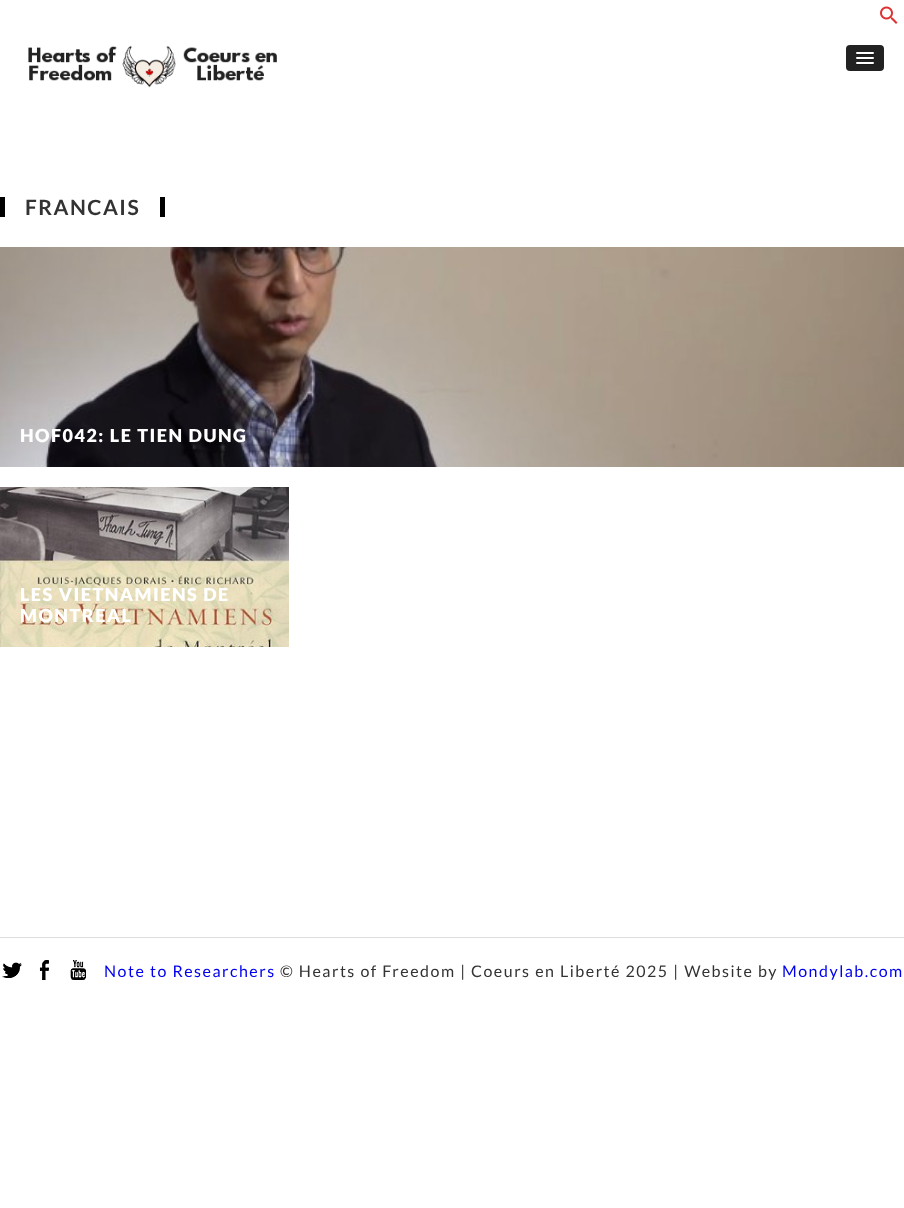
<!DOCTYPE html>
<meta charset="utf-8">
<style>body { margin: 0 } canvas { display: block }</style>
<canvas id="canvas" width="904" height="1208"></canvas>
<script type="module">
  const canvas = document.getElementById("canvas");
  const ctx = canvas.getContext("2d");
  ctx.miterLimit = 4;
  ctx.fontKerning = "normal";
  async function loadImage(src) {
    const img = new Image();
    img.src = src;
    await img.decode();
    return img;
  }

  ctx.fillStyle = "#ffffff";
  ctx.fillRect(0, 0, 904, 1208);
  ctx.drawImage(await loadImage("img1.png"), 880, 6, 18, 18);
  ctx.drawImage(await loadImage("img2.png"), 28, 46, 249, 42);
  ctx.fillStyle = "#222222";
  ctx.beginPath();
  ctx.roundRect(846, 45, 38, 26, 4);
  ctx.fill();
  ctx.fillStyle = "#1a1a1a";
  ctx.beginPath();
  ctx.moveTo(856, 53.5);
  ctx.bezierCurveTo(855, 55.5, 859.5, 55, 859.5, 55);
  ctx.lineTo(870.5, 55);
  ctx.bezierCurveTo(870.5, 55, 875, 55.5, 874, 53.5);
  ctx.bezierCurveTo(873, 54.5, 866.5, 54, 865, 54);
  ctx.bezierCurveTo(863.5, 54, 857, 54.5, 856, 53.5);
  ctx.closePath();
  ctx.fill();
  ctx.fillStyle = "#ffffff";
  ctx.beginPath();
  ctx.roundRect(856, 52, 18, 2, 1);
  ctx.fill();
  ctx.fillStyle = "#1a1a1a";
  ctx.beginPath();
  ctx.moveTo(856, 58.5);
  ctx.bezierCurveTo(855, 60.5, 859.5, 60, 859.5, 60);
  ctx.lineTo(870.5, 60);
  ctx.bezierCurveTo(870.5, 60, 875, 60.5, 874, 58.5);
  ctx.bezierCurveTo(873, 59.5, 866.5, 59, 865, 59);
  ctx.bezierCurveTo(863.5, 59, 857, 59.5, 856, 58.5);
  ctx.closePath();
  ctx.fill();
  ctx.fillStyle = "#ffffff";
  ctx.beginPath();
  ctx.roundRect(856, 57, 18, 2, 1);
  ctx.fill();
  ctx.fillStyle = "#1a1a1a";
  ctx.beginPath();
  ctx.moveTo(856, 63.5);
  ctx.bezierCurveTo(855, 65.5, 859.5, 65, 859.5, 65);
  ctx.lineTo(870.5, 65);
  ctx.bezierCurveTo(870.5, 65, 875, 65.5, 874, 63.5);
  ctx.bezierCurveTo(873, 64.5, 866.5, 64, 865, 64);
  ctx.bezierCurveTo(863.5, 64, 857, 64.5, 856, 63.5);
  ctx.closePath();
  ctx.fill();
  ctx.fillStyle = "#ffffff";
  ctx.beginPath();
  ctx.roundRect(856, 62, 18, 2, 1);
  ctx.fill();
  ctx.fillStyle = "#000000";
  ctx.fillRect(160, 197, 5, 20);
  ctx.fillRect(0, 197, 5, 20);
  ctx.letterSpacing = "1.5px";
  ctx.font = "bold 21px Lato";
  ctx.fillStyle = "#333333";
  ctx.fillText("FRANCAIS", 25, 215);
  ctx.drawImage(await loadImage("img3.png"), 0, 247, 904, 220);
  ctx.font = "900 18px Lato";
  ctx.fillStyle = "#ffffff";
  ctx.fillText("HOF042: LE TIEN DUNG", 20, 442);
  ctx.drawImage(await loadImage("img4.png"), 0, 487, 289, 160);
  ctx.fillText("LES VIETNAMIENS DE", 20, 601);
  ctx.fillText("MONTREAL", 20, 622);
  ctx.fillStyle = "#dddddd";
  ctx.fillRect(0, 937, 904, 1);
  ctx.drawImage(await loadImage("img5.png"), 2, 962, 20, 16);
  ctx.drawImage(await loadImage("img6.png"), 39, 960, 10, 20);
  ctx.drawImage(await loadImage("img7.png"), 70, 960, 16, 20);
  ctx.font = "16px Lato";
  ctx.fillStyle = "#0000ee";
  ctx.fillText("Note to Researchers", 104, 977);
  ctx.fillStyle = "#333333";
  ctx.fillText("© Hearts of Freedom | Coeurs en Liberté 2025 | Website by", 280, 977);
  ctx.fillStyle = "#0000ee";
  ctx.fillText("Mondylab.com", 782, 977);
</script>
